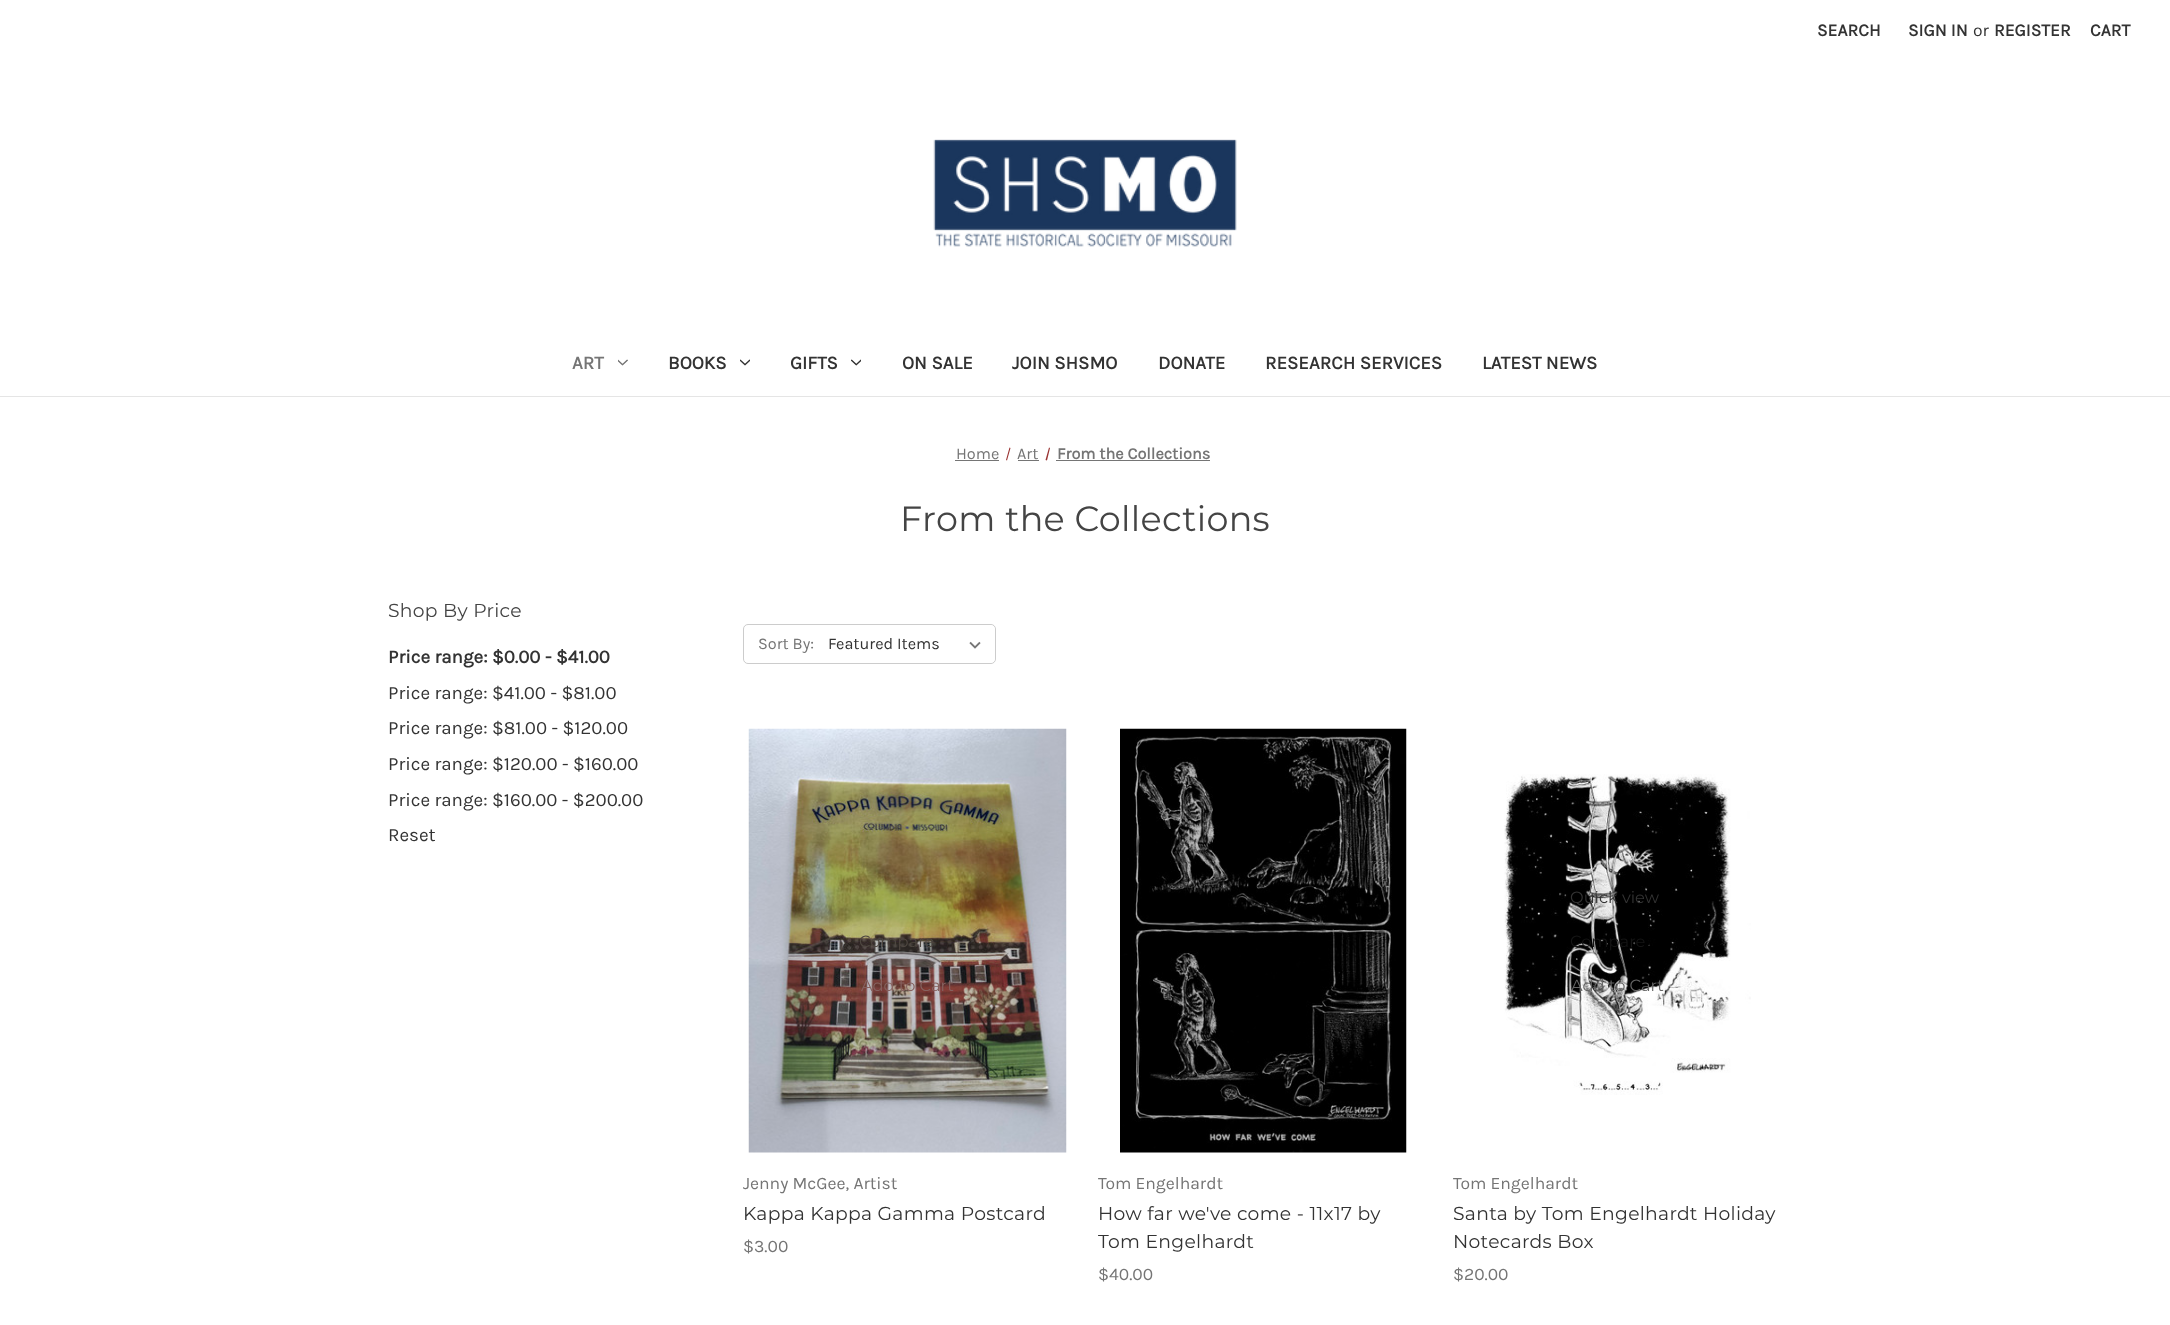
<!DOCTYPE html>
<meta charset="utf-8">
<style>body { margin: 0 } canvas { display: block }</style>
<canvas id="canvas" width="2170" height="1325"></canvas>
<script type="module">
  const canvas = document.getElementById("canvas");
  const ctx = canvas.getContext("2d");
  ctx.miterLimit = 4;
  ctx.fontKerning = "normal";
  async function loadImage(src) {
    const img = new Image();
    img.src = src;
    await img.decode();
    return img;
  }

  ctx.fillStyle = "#ffffff";
  ctx.fillRect(0, 0, 2170, 1325);
  ctx.fillStyle = "#e5e5e5";
  ctx.fillRect(0, 396, 2170, 1);
  ctx.font = "bold 17.5px Karla";
  ctx.fillStyle = "#333333";
  ctx.fillText("SEARCH", 1817, 36);
  ctx.fillText("SIGN IN", 1908, 36);
  ctx.font = "17.5px Karla";
  ctx.fillText("or", 1973, 36);
  ctx.font = "bold 17.5px Karla";
  ctx.fillText("REGISTER", 1994, 36);
  ctx.fillText("CART", 2090, 36);
  ctx.drawImage(await loadImage("img1.png"), 933, 139, 304, 108);
  ctx.font = "bold 18.75px Karla";
  ctx.fillStyle = "#757575";
  ctx.fillText("ART", 572, 369);
  ctx.drawImage(await loadImage("img2.png"), 618, 359, 10, 7);
  ctx.fillStyle = "#333333";
  ctx.fillText("BOOKS", 668, 369);
  ctx.drawImage(await loadImage("img3.png"), 740, 359, 10, 7);
  ctx.fillText("GIFTS", 790, 369);
  ctx.drawImage(await loadImage("img4.png"), 851, 359, 10, 7);
  ctx.fillText("ON SALE", 902, 369);
  ctx.fillText("JOIN SHSMO", 1012, 369);
  ctx.fillText("DONATE", 1158, 369);
  ctx.fillText("RESEARCH SERVICES", 1265, 369);
  ctx.fillText("LATEST NEWS", 1482, 369);
  ctx.font = "16.25px Karla";
  ctx.fillStyle = "#757575";
  ctx.fillText("Home", 956, 459);
  ctx.fillRect(955, 460, 44, 1);
  ctx.fillText("Art", 1017, 459);
  ctx.fillRect(1018, 460, 21, 1);
  ctx.fillStyle = "#9a3433";
  ctx.beginPath();
  ctx.moveTo(1009.5, 447.5);
  ctx.lineTo(1010.5, 448);
  ctx.lineTo(1007, 460.5);
  ctx.lineTo(1006, 460);
  ctx.closePath();
  ctx.moveTo(1049, 447.5);
  ctx.lineTo(1050, 448);
  ctx.lineTo(1047, 460.5);
  ctx.lineTo(1045.5, 460);
  ctx.closePath();
  ctx.fill();
  ctx.font = "bold 16.25px Karla";
  ctx.fillStyle = "#757575";
  ctx.fillText("From the Collections", 1057, 459);
  ctx.fillRect(1056, 460, 154, 1);
  ctx.letterSpacing = "0.3px";
  ctx.font = "100 35px Montserrat";
  ctx.fillStyle = "#444444";
  ctx.fillText("From the Collections", 900, 531);
  ctx.font = "100 18.75px Montserrat";
  ctx.fillText("Shop By Price", 388, 617);
  ctx.letterSpacing = "0px";
  ctx.font = "bold 18.75px Karla";
  ctx.fillStyle = "#333333";
  ctx.fillText("Price range: $0.00 - $41.00", 388, 663);
  ctx.font = "18.75px Karla";
  ctx.fillText("Price range: $41.00 - $81.00", 388, 699);
  ctx.fillText("Price range: $81.00 - $120.00", 388, 734);
  ctx.fillText("Price range: $120.00 - $160.00", 388, 770);
  ctx.fillText("Price range: $160.00 - $200.00", 388, 806);
  ctx.fillText("Reset", 388, 841);
  ctx.beginPath();
  ctx.roundRect(743.5, 624.5, 252, 39, 4.5);
  ctx.strokeStyle = "#cccccc";
  ctx.stroke();
  ctx.font = "16.25px Karla";
  ctx.fillStyle = "#757575";
  ctx.fillText("Sort By:", 758, 649);
  ctx.fillStyle = "#ffffff";
  ctx.beginPath();
  ctx.roundRect(824, 625, 171, 38, 5);
  ctx.fill();
  ctx.drawImage(await loadImage("img5.png"), 969, 641, 12, 8);
  ctx.fillStyle = "#333333";
  ctx.fillText("Featured Items", 828, 649);
  ctx.drawImage(await loadImage("img6.png"), 748, 728, 319, 425);
  ctx.font = "100 16.25px Montserrat";
  ctx.fillStyle = "#4e4740";
  ctx.fillText("Compare", 859, 947);
  ctx.fillStyle = "#86625f";
  ctx.fillText("Add to Cart", 861, 991);
  ctx.font = "17.5px Karla";
  ctx.fillStyle = "#757575";
  ctx.fillText("Jenny McGee, Artist", 743, 1189);
  ctx.letterSpacing = "0.3px";
  ctx.font = "100 18.75px Montserrat";
  ctx.fillStyle = "#333333";
  ctx.fillText("Kappa Kappa Gamma Postcard", 743, 1220);
  ctx.letterSpacing = "0px";
  ctx.font = "17.5px Karla";
  ctx.fillStyle = "#757575";
  ctx.fillText("$3.00", 743, 1252);
  ctx.drawImage(await loadImage("img7.png"), 1120, 728, 287, 425);
  ctx.fillText("Tom Engelhardt", 1098, 1189);
  ctx.letterSpacing = "0.3px";
  ctx.font = "100 18.75px Montserrat";
  ctx.fillStyle = "#333333";
  ctx.fillText("How far we've come - 11x17 by", 1098, 1220);
  ctx.fillText("Tom Engelhardt", 1098, 1248);
  ctx.letterSpacing = "0px";
  ctx.font = "17.5px Karla";
  ctx.fillStyle = "#757575";
  ctx.fillText("$40.00", 1098, 1280);
  ctx.drawImage(await loadImage("img8.png"), 1504, 774, 247, 321);
  ctx.font = "100 16.25px Montserrat";
  ctx.fillStyle = "#333333";
  ctx.fillText("Quick view", 1570, 903);
  ctx.fillStyle = "#151515";
  ctx.fillText("Compare", 1570, 947);
  ctx.fillStyle = "#646464";
  ctx.fillText("Add to Cart", 1571, 991);
  ctx.font = "17.5px Karla";
  ctx.fillStyle = "#757575";
  ctx.fillText("Tom Engelhardt", 1453, 1189);
  ctx.letterSpacing = "0.3px";
  ctx.font = "100 18.75px Montserrat";
  ctx.fillStyle = "#333333";
  ctx.fillText("Santa by Tom Engelhardt Holiday", 1453, 1220);
  ctx.fillText("Notecards Box", 1453, 1248);
  ctx.letterSpacing = "0px";
  ctx.font = "17.5px Karla";
  ctx.fillStyle = "#757575";
  ctx.fillText("$20.00", 1453, 1280);
</script>
